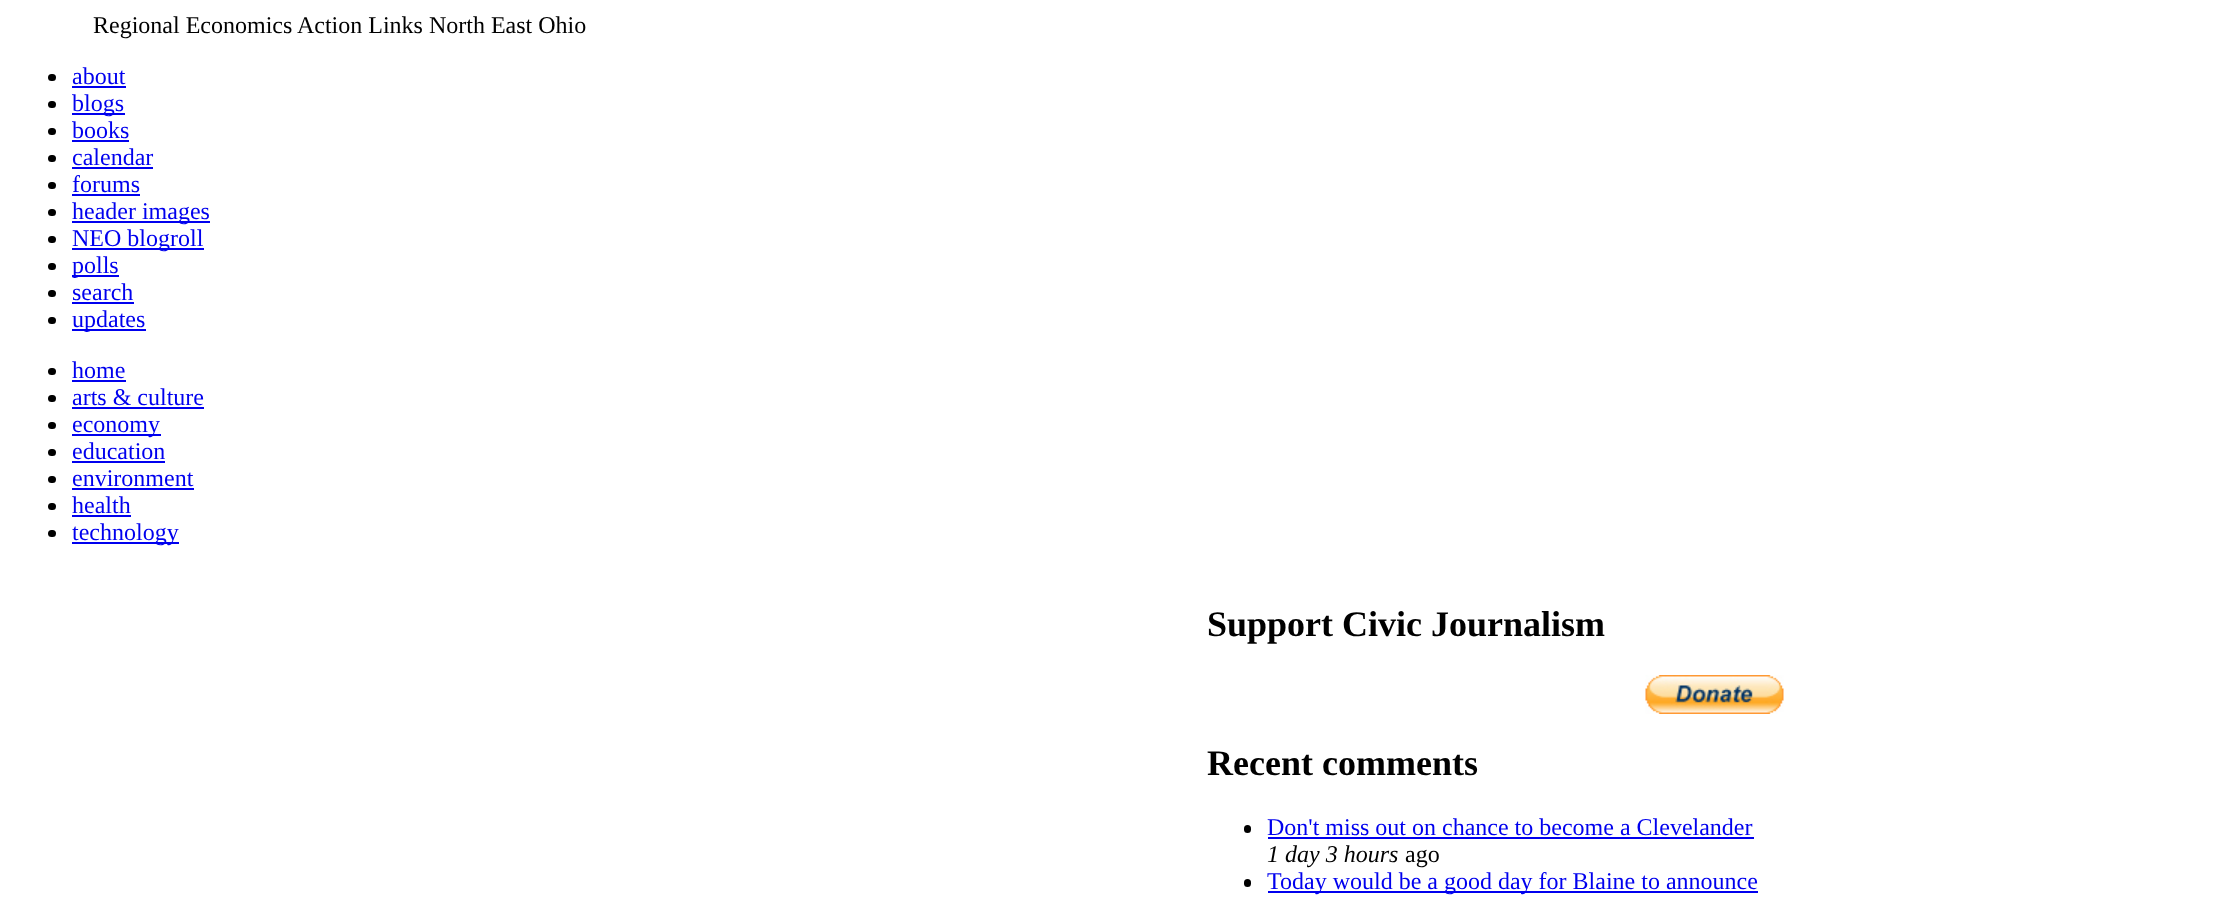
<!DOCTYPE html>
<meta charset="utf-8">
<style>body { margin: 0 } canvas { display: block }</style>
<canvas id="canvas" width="2238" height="910"></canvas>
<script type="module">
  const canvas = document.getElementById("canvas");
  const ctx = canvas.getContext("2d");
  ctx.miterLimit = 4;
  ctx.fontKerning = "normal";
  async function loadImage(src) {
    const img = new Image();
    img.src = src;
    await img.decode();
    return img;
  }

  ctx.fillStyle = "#ffffff";
  ctx.fillRect(0, 0, 2238, 910);
  ctx.font = "24px Liberation Serif";
  ctx.fillStyle = "#000000";
  ctx.fillText("Regional Economics Action Links North East Ohio", 93, 33);
  ctx.beginPath();
  ctx.roundRect(48, 74, 8, 7, 3.5);
  ctx.fill();
  ctx.fillStyle = "#0000ee";
  ctx.fillText("about", 72, 84);
  ctx.fillRect(72, 86, 54, 2);
  ctx.fillStyle = "#000000";
  ctx.beginPath();
  ctx.roundRect(48, 101, 8, 7, 3.5);
  ctx.fill();
  ctx.fillStyle = "#0000ee";
  ctx.fillRect(72, 113, 53, 2);
  ctx.fillText("blogs", 72, 111);
  ctx.fillStyle = "#000000";
  ctx.beginPath();
  ctx.roundRect(48, 128, 8, 7, 3.5);
  ctx.fill();
  ctx.fillStyle = "#0000ee";
  ctx.fillText("books", 72, 138);
  ctx.fillRect(72, 140, 57, 2);
  ctx.fillStyle = "#000000";
  ctx.beginPath();
  ctx.roundRect(48, 155, 8, 7, 3.5);
  ctx.fill();
  ctx.fillStyle = "#0000ee";
  ctx.fillText("calendar", 72, 165);
  ctx.fillRect(72, 167, 81, 2);
  ctx.fillStyle = "#000000";
  ctx.beginPath();
  ctx.roundRect(48, 182, 8, 7, 3.5);
  ctx.fill();
  ctx.fillStyle = "#0000ee";
  ctx.fillText("forums", 72, 192);
  ctx.fillRect(72, 194, 68, 2);
  ctx.fillStyle = "#000000";
  ctx.beginPath();
  ctx.roundRect(48, 209, 8, 7, 3.5);
  ctx.fill();
  ctx.fillStyle = "#0000ee";
  ctx.fillRect(72, 221, 138, 2);
  ctx.fillText("header images", 72, 219);
  ctx.fillStyle = "#000000";
  ctx.beginPath();
  ctx.roundRect(48, 236, 8, 7, 3.5);
  ctx.fill();
  ctx.fillStyle = "#0000ee";
  ctx.fillRect(72, 248, 132, 2);
  ctx.fillText("NEO blogroll", 72, 246);
  ctx.fillStyle = "#000000";
  ctx.beginPath();
  ctx.roundRect(48, 263, 8, 7, 3.5);
  ctx.fill();
  ctx.fillStyle = "#0000ee";
  ctx.fillRect(72, 275, 47, 2);
  ctx.fillText("polls", 72, 273);
  ctx.fillStyle = "#000000";
  ctx.beginPath();
  ctx.roundRect(48, 290, 8, 7, 3.5);
  ctx.fill();
  ctx.fillStyle = "#0000ee";
  ctx.fillText("search", 72, 300);
  ctx.fillRect(72, 302, 62, 2);
  ctx.fillStyle = "#000000";
  ctx.beginPath();
  ctx.roundRect(48, 317, 8, 7, 3.5);
  ctx.fill();
  ctx.fillStyle = "#0000ee";
  ctx.fillRect(72, 329, 74, 2);
  ctx.fillText("updates", 72, 327);
  ctx.fillStyle = "#000000";
  ctx.beginPath();
  ctx.roundRect(48, 368, 8, 7, 3.5);
  ctx.fill();
  ctx.fillStyle = "#0000ee";
  ctx.fillText("home", 72, 378);
  ctx.fillRect(72, 380, 54, 2);
  ctx.fillStyle = "#000000";
  ctx.beginPath();
  ctx.roundRect(48, 395, 8, 7, 3.5);
  ctx.fill();
  ctx.fillStyle = "#0000ee";
  ctx.fillText("arts & culture", 72, 405);
  ctx.fillRect(72, 407, 132, 2);
  ctx.fillStyle = "#000000";
  ctx.beginPath();
  ctx.roundRect(48, 422, 8, 7, 3.5);
  ctx.fill();
  ctx.fillStyle = "#0000ee";
  ctx.fillRect(72, 434, 89, 2);
  ctx.fillText("economy", 72, 432);
  ctx.fillStyle = "#000000";
  ctx.beginPath();
  ctx.roundRect(48, 449, 8, 7, 3.5);
  ctx.fill();
  ctx.fillStyle = "#0000ee";
  ctx.fillText("education", 72, 459);
  ctx.fillRect(72, 461, 93, 2);
  ctx.fillStyle = "#000000";
  ctx.beginPath();
  ctx.roundRect(48, 476, 8, 7, 3.5);
  ctx.fill();
  ctx.fillStyle = "#0000ee";
  ctx.fillText("environment", 72, 486);
  ctx.fillRect(72, 488, 122, 2);
  ctx.fillStyle = "#000000";
  ctx.beginPath();
  ctx.roundRect(48, 503, 8, 7, 3.5);
  ctx.fill();
  ctx.fillStyle = "#0000ee";
  ctx.fillText("health", 72, 513);
  ctx.fillRect(72, 515, 59, 2);
  ctx.fillStyle = "#000000";
  ctx.beginPath();
  ctx.roundRect(48, 530, 8, 7, 3.5);
  ctx.fill();
  ctx.fillStyle = "#0000ee";
  ctx.fillRect(72, 542, 107, 2);
  ctx.fillText("technology", 72, 540);
  ctx.font = "bold 36px Liberation Serif";
  ctx.fillStyle = "#000000";
  ctx.fillText("Support Civic Journalism", 1207, 636);
  ctx.drawImage(await loadImage("img1.png"), 1645, 675, 139, 39);
  ctx.fillText("Recent comments", 1207, 775);
  ctx.beginPath();
  ctx.roundRect(1244, 825, 7, 8, 3.5);
  ctx.fill();
  ctx.font = "24px Liberation Serif";
  ctx.fillStyle = "#0000ee";
  ctx.fillText("Don't miss out on chance to become a Clevelander", 1267, 835);
  ctx.fillRect(1268, 837, 486, 2);
  ctx.font = "italic 24px Liberation Serif";
  ctx.fillStyle = "#000000";
  ctx.fillText("1 day 3 hours", 1267, 862);
  ctx.font = "24px Liberation Serif";
  ctx.fillText("ago", 1405, 862);
  ctx.beginPath();
  ctx.roundRect(1244, 879, 7, 8, 3.5);
  ctx.fill();
  ctx.fillStyle = "#0000ee";
  ctx.fillRect(1268, 891, 490, 2);
  ctx.fillText("Today would be a good day for Blaine to announce", 1267, 889);
</script>
